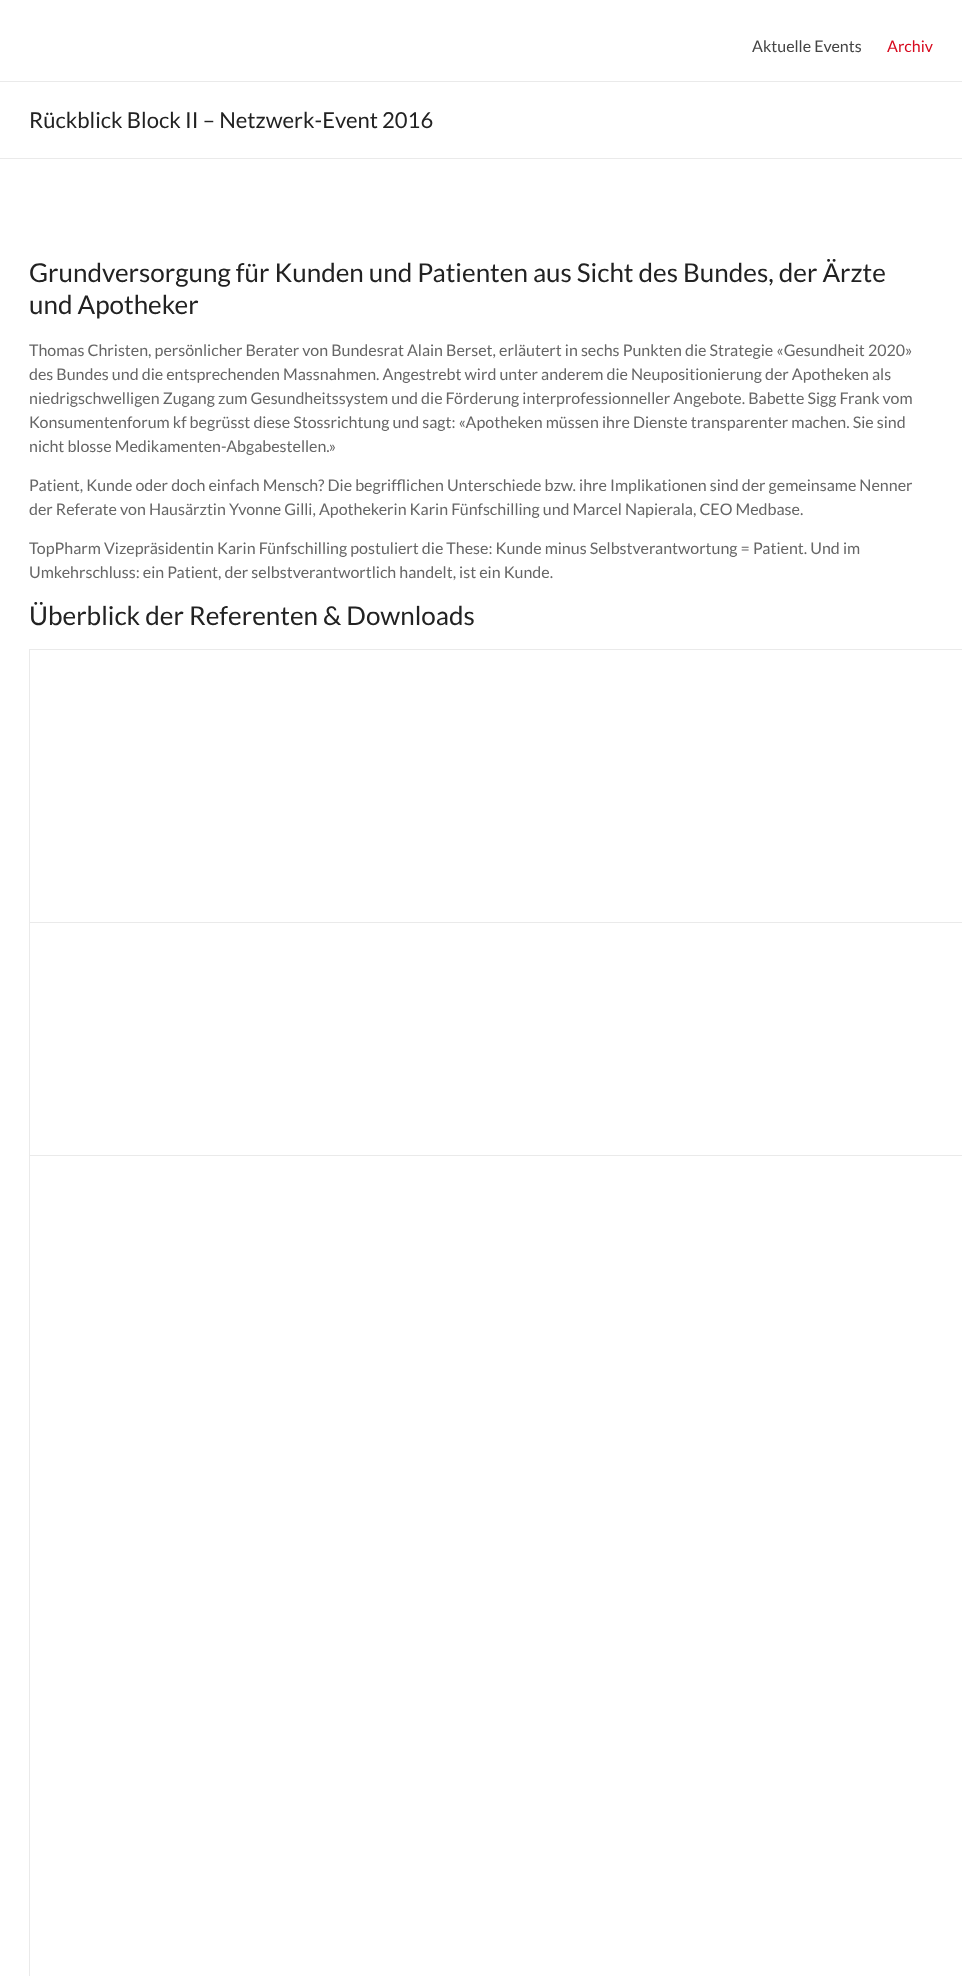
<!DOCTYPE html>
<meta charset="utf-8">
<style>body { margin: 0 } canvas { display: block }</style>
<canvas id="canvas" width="962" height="1976"></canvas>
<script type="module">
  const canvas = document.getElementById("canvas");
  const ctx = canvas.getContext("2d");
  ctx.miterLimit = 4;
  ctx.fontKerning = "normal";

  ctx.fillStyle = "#ffffff";
  ctx.fillRect(0, 0, 962, 1976);
  ctx.fillStyle = "#eaeaea";
  ctx.fillRect(0, 81, 962, 1);
  ctx.font = "16px Lato";
  ctx.fillStyle = "#444444";
  ctx.fillText("Aktuelle Events", 752, 52);
  ctx.fillStyle = "#d70a1e";
  ctx.fillText("Archiv", 887, 52);
  ctx.fillStyle = "#eaeaea";
  ctx.fillRect(0, 158, 962, 1);
  ctx.font = "22px Lato";
  ctx.fillStyle = "#222222";
  ctx.fillText("Rückblick Block II – Netzwerk-Event 2016", 29, 128);
  ctx.font = "26px Lato";
  ctx.fillText("Grundversorgung für Kunden und Patienten aus Sicht des Bundes, der Ärzte", 29, 282);
  ctx.fillText("und Apotheker", 29, 314);
  ctx.font = "16px Lato";
  ctx.fillStyle = "#666666";
  ctx.fillText("Thomas Christen, persönlicher Berater von Bundesrat Alain Berset, erläutert in sechs Punkten die Strategie «Gesundheit 2020»", 29, 356);
  ctx.fillText("des Bundes und die entsprechenden Massnahmen. Angestrebt wird unter anderem die Neupositionierung der Apotheken als", 29, 380);
  ctx.fillText("niedrigschwelligen Zugang zum Gesundheitssystem und die Förderung interprofessionneller Angebote. Babette Sigg Frank vom", 29, 404);
  ctx.fillText("Konsumentenforum kf begrüsst diese Stossrichtung und sagt: «Apotheken müssen ihre Dienste transparenter machen. Sie sind", 29, 428);
  ctx.fillText("nicht blosse Medikamenten-Abgabestellen.»", 29, 452);
  ctx.fillText("Patient, Kunde oder doch einfach Mensch? Die begrifflichen Unterschiede bzw. ihre Implikationen sind der gemeinsame Nenner", 29, 491);
  ctx.fillText("der Referate von Hausärztin Yvonne Gilli, Apothekerin Karin Fünfschilling und Marcel Napierala, CEO Medbase.", 29, 515);
  ctx.fillText("TopPharm Vizepräsidentin Karin Fünfschilling postuliert die These: Kunde minus Selbstverantwortung = Patient. Und im", 29, 554);
  ctx.fillText("Umkehrschluss: ein Patient, der selbstverantwortlich handelt, ist ein Kunde.", 29, 578);
  ctx.font = "26px Lato";
  ctx.fillStyle = "#222222";
  ctx.fillText("Überblick der Referenten & Downloads", 29, 625);
  ctx.fillStyle = "#eaeaea";
  ctx.fillRect(29, 649, 933, 1);
  ctx.fillRect(29, 922, 933, 1);
  ctx.fillRect(29, 1155, 933, 1);
  ctx.fillRect(29, 1155, 1, 821);
  ctx.fillRect(29, 922, 1, 234);
  ctx.fillRect(29, 649, 1, 274);
</script>
